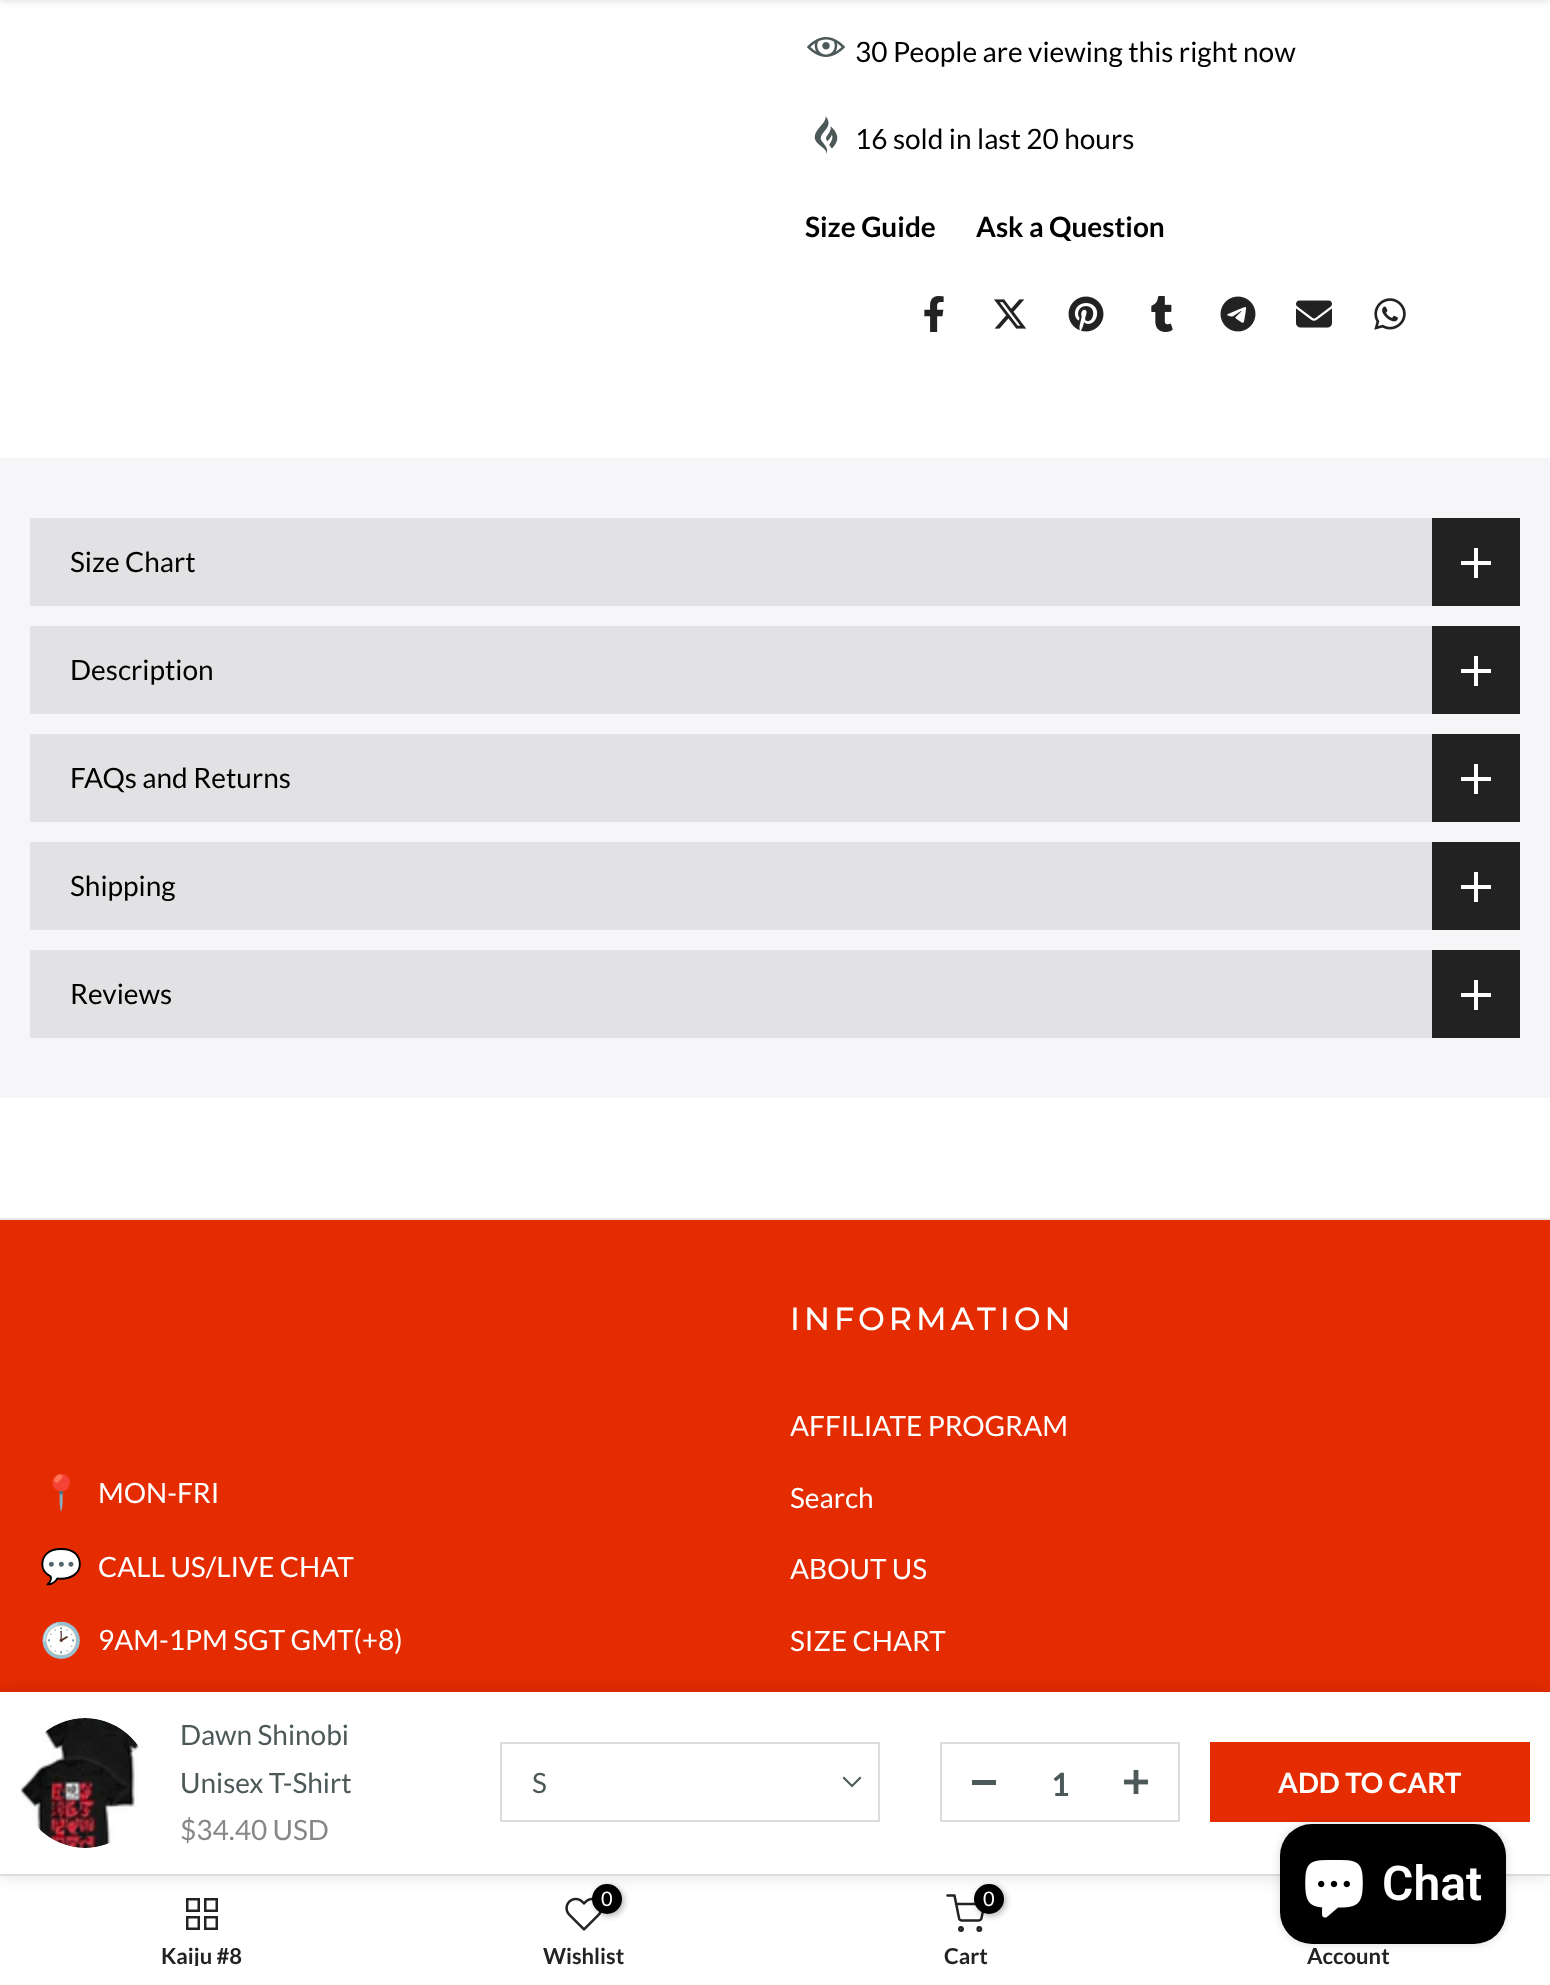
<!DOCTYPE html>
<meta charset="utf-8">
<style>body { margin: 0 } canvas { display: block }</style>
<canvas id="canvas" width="1550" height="1985"></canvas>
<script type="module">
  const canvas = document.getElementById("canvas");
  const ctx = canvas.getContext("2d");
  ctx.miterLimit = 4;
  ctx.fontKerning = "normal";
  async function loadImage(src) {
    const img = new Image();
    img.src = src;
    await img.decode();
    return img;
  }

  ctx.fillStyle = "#ffffff";
  ctx.fillRect(0, 0, 1550, 1985);
  ctx.fillStyle = "rgba(0, 0, 0, 0.1)";
  ctx.filter = "blur(3px)";
  ctx.beginPath();
  ctx.rect(0, -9, 1550, 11);
  ctx.fill();
  ctx.filter = "none";
  ctx.drawImage(await loadImage("img1.png"), 807, 37, 38, 20);
  ctx.font = "28px Lato";
  ctx.fillStyle = "#000000";
  ctx.fillText("30 People are viewing this right now", 855, 62);
  ctx.drawImage(await loadImage("img2.png"), 814, 116, 24, 38);
  ctx.fillText("16 sold in last 20 hours", 855, 149);
  ctx.font = "bold 28px Lato";
  ctx.fillText("Size Guide", 805, 237);
  ctx.fillText("Ask a Question", 976, 237);
  ctx.drawImage(await loadImage("img3.png"), 924, 296, 20, 36);
  ctx.drawImage(await loadImage("img4.png"), 994, 299, 33, 30);
  ctx.drawImage(await loadImage("img5.png"), 1068, 296, 36, 36);
  ctx.drawImage(await loadImage("img6.png"), 1151, 296, 22, 36);
  ctx.drawImage(await loadImage("img7.png"), 1220, 296, 36, 36);
  ctx.drawImage(await loadImage("img8.png"), 1296, 300, 36, 28);
  ctx.drawImage(await loadImage("img9.png"), 1374, 298, 32, 32);
  ctx.fillStyle = "#f6f6f8";
  ctx.fillRect(0, 458, 1550, 640);
  ctx.fillStyle = "#e2e2e4";
  ctx.fillRect(30, 518, 1402, 88);
  ctx.font = "28px Lato";
  ctx.fillStyle = "#000000";
  ctx.fillText("Size Chart", 70, 572);
  ctx.fillStyle = "#222222";
  ctx.fillRect(1432, 518, 88, 88);
  ctx.fillStyle = "#ffffff";
  ctx.fillRect(1474, 548, 4, 30);
  ctx.fillRect(1461, 561, 30, 4);
  ctx.fillStyle = "#e2e2e4";
  ctx.fillRect(30, 626, 1402, 88);
  ctx.fillStyle = "#000000";
  ctx.fillText("Description", 70, 680);
  ctx.fillStyle = "#222222";
  ctx.fillRect(1432, 626, 88, 88);
  ctx.fillStyle = "#ffffff";
  ctx.fillRect(1474, 656, 4, 30);
  ctx.fillRect(1461, 669, 30, 4);
  ctx.fillStyle = "#e2e2e4";
  ctx.fillRect(30, 734, 1402, 88);
  ctx.fillStyle = "#000000";
  ctx.fillText("FAQs and Returns", 70, 788);
  ctx.fillStyle = "#222222";
  ctx.fillRect(1432, 734, 88, 88);
  ctx.fillStyle = "#ffffff";
  ctx.fillRect(1474, 764, 4, 30);
  ctx.fillRect(1461, 777, 30, 4);
  ctx.fillStyle = "#e2e2e4";
  ctx.fillRect(30, 842, 1402, 88);
  ctx.fillStyle = "#000000";
  ctx.fillText("Shipping", 70, 896);
  ctx.fillStyle = "#222222";
  ctx.fillRect(1432, 842, 88, 88);
  ctx.fillStyle = "#ffffff";
  ctx.fillRect(1474, 872, 4, 30);
  ctx.fillRect(1461, 885, 30, 4);
  ctx.fillStyle = "#e2e2e4";
  ctx.fillRect(30, 950, 1402, 88);
  ctx.fillStyle = "#000000";
  ctx.fillText("Reviews", 70, 1004);
  ctx.fillStyle = "#222222";
  ctx.fillRect(1432, 950, 88, 88);
  ctx.fillStyle = "#ffffff";
  ctx.fillRect(1474, 980, 4, 30);
  ctx.fillRect(1461, 993, 30, 4);
  ctx.fillStyle = "#e42c00";
  ctx.fillRect(0, 1220, 1550, 472);
  ctx.fillStyle = "#e6e6e6";
  ctx.fillRect(0, 1218, 1550, 2);
  ctx.font = "34px Noto Color Emoji";
  ctx.fillStyle = "#ffffff";
  ctx.fillText("📍", 40, 1504);
  ctx.font = "28px Lato";
  ctx.fillText("MON-FRI", 98, 1503);
  ctx.font = "34px Noto Color Emoji";
  ctx.fillText("💬", 40, 1578);
  ctx.font = "28px Lato";
  ctx.fillText("CALL US/LIVE CHAT", 98, 1577);
  ctx.font = "34px Noto Color Emoji";
  ctx.fillText("🕑", 40, 1652);
  ctx.font = "28px Lato";
  ctx.fillText("9AM-1PM SGT GMT(+8)", 98, 1650);
  ctx.letterSpacing = "4px";
  ctx.font = "500 32px Montserrat";
  ctx.fillText("INFORMATION", 790, 1330);
  ctx.letterSpacing = "0px";
  ctx.font = "28px Lato";
  ctx.fillText("AFFILIATE PROGRAM", 790, 1436);
  ctx.fillText("Search", 790, 1508);
  ctx.fillText("ABOUT US", 790, 1579);
  ctx.fillText("SIZE CHART", 790, 1651);
  ctx.strokeStyle = "#222222";
  ctx.lineWidth = 2.5;
  ctx.strokeRect(187.25, 1899.25, 11.5, 11.5);
  ctx.strokeRect(205.25, 1899.25, 11.5, 11.5);
  ctx.drawImage(await loadImage("img13.png"), 565, 1897, 37, 34);
  ctx.fillStyle = "rgba(0, 0, 0, 0.3)";
  ctx.filter = "blur(3px)";
  ctx.beginPath();
  ctx.roundRect(594, 1886, 30, 30, 15);
  ctx.fill();
  ctx.filter = "none";
  ctx.fillStyle = "#000000";
  ctx.beginPath();
  ctx.arc(607, 1899, 15, 0, Math.PI * 2);
  ctx.fill();
  ctx.beginPath();
  ctx.moveTo(947.5, 1895.5);
  ctx.lineTo(954.5, 1895.5);
  ctx.lineTo(959, 1918);
  ctx.bezierCurveTo(959, 1919.5, 960.5, 1920.5, 962, 1920.5);
  ctx.lineTo(978.5, 1920.5);
  ctx.bezierCurveTo(980, 1920.5, 981.5, 1919.5, 981.5, 1918);
  ctx.lineTo(984.5, 1904);
  ctx.lineTo(956, 1904);
  ctx.lineCap = "round";
  ctx.lineJoin = "round";
  ctx.stroke();
  ctx.fillStyle = "rgba(0, 0, 0, 0.3)";
  ctx.filter = "blur(3px)";
  ctx.beginPath();
  ctx.roundRect(976, 1886, 30, 30, 15);
  ctx.fill();
  ctx.filter = "none";
  ctx.fillStyle = "#000000";
  ctx.beginPath();
  ctx.arc(989, 1899, 15, 0, Math.PI * 2);
  ctx.fill();
  ctx.fillStyle = "rgba(0, 0, 0, 0.12)";
  ctx.filter = "blur(9px)";
  ctx.beginPath();
  ctx.rect(0, 1692, 1550, 184);
  ctx.fill();
  ctx.filter = "none";
  ctx.fillStyle = "#ffffff";
  ctx.fillRect(0, 1692, 1550, 182);
  ctx.fillStyle = "#dddddd";
  ctx.fillRect(0, 1874, 1550, 2);
  ctx.drawImage(await loadImage("img10.png"), 20, 1718, 119, 130);
  ctx.fillStyle = "#4d5959";
  ctx.fillText("Dawn Shinobi", 180, 1745);
  ctx.fillText("Unisex T-Shirt", 180, 1793);
  ctx.fillStyle = "#878787";
  ctx.fillText("$34.40 USD", 180, 1840);
  ctx.strokeStyle = "#dddddd";
  ctx.lineWidth = 2;
  ctx.lineJoin = "miter";
  ctx.strokeRect(501, 1743, 378, 78);
  ctx.fillStyle = "#4d5959";
  ctx.fillText("S", 532, 1793);
  ctx.beginPath();
  ctx.moveTo(860, 1778);
  ctx.lineTo(852, 1786);
  ctx.lineTo(844, 1778);
  ctx.strokeStyle = "#4d5959";
  ctx.lineWidth = 2.1;
  ctx.lineCap = "square";
  ctx.stroke();
  ctx.strokeStyle = "#dddddd";
  ctx.lineWidth = 2;
  ctx.strokeRect(941, 1743, 238, 78);
  ctx.fillRect(972, 1780, 24, 5);
  ctx.font = "bold 32px Lato";
  ctx.fillText("1", 1051, 1796);
  ctx.drawImage(await loadImage("img11.png"), 1124, 1770, 24, 24);
  ctx.fillStyle = "#e42c00";
  ctx.fillRect(1210, 1742, 320, 80);
  ctx.font = "bold 28px Lato";
  ctx.fillStyle = "#ffffff";
  ctx.fillText("ADD TO CART", 1278, 1793);
  ctx.fillStyle = "rgba(0, 0, 0, 0.15)";
  ctx.filter = "blur(5px)";
  ctx.beginPath();
  ctx.roundRect(1280, 1824, 226, 120, 32);
  ctx.fill();
  ctx.filter = "none";
  ctx.fillStyle = "#000000";
  ctx.beginPath();
  ctx.roundRect(1280, 1824, 226, 120, 32);
  ctx.fill();
  ctx.drawImage(await loadImage("img12.png"), 1305, 1860, 58, 58);
  ctx.font = "600 48px Roboto";
  ctx.fillStyle = "#ffffff";
  ctx.fillText("Chat", 1382, 1900);
  ctx.strokeStyle = "#222222";
  ctx.lineWidth = 2.5;
  ctx.strokeRect(187.25, 1917.25, 11.5, 11.5);
  ctx.strokeRect(205.25, 1917.25, 11.5, 11.5);
  ctx.save();
  ctx.beginPath();
  ctx.rect(30, 1944, 342, 22);
  ctx.clip();
  ctx.font = "bold 22px Lato";
  ctx.fillStyle = "#222222";
  ctx.fillText("Kaiju #8", 161, 1964);
  ctx.restore();
  ctx.font = "20px Lato";
  ctx.fillText("0", 601, 1906);
  ctx.font = "bold 22px Lato";
  ctx.fillStyle = "#222222";
  ctx.fillText("Wishlist", 543, 1964);
  ctx.font = "20px Lato";
  ctx.fillStyle = "#ffffff";
  ctx.fillText("0", 983, 1906);
  ctx.beginPath();
  ctx.arc(961, 1929, 1.7, 0, Math.PI * 2);
  ctx.stroke();
  ctx.beginPath();
  ctx.arc(979.3, 1929, 1.7, 0, Math.PI * 2);
  ctx.stroke();
  ctx.font = "bold 22px Lato";
  ctx.fillStyle = "#222222";
  ctx.fillText("Cart", 944, 1964);
  ctx.fillText("Account", 1307, 1964);
</script>
